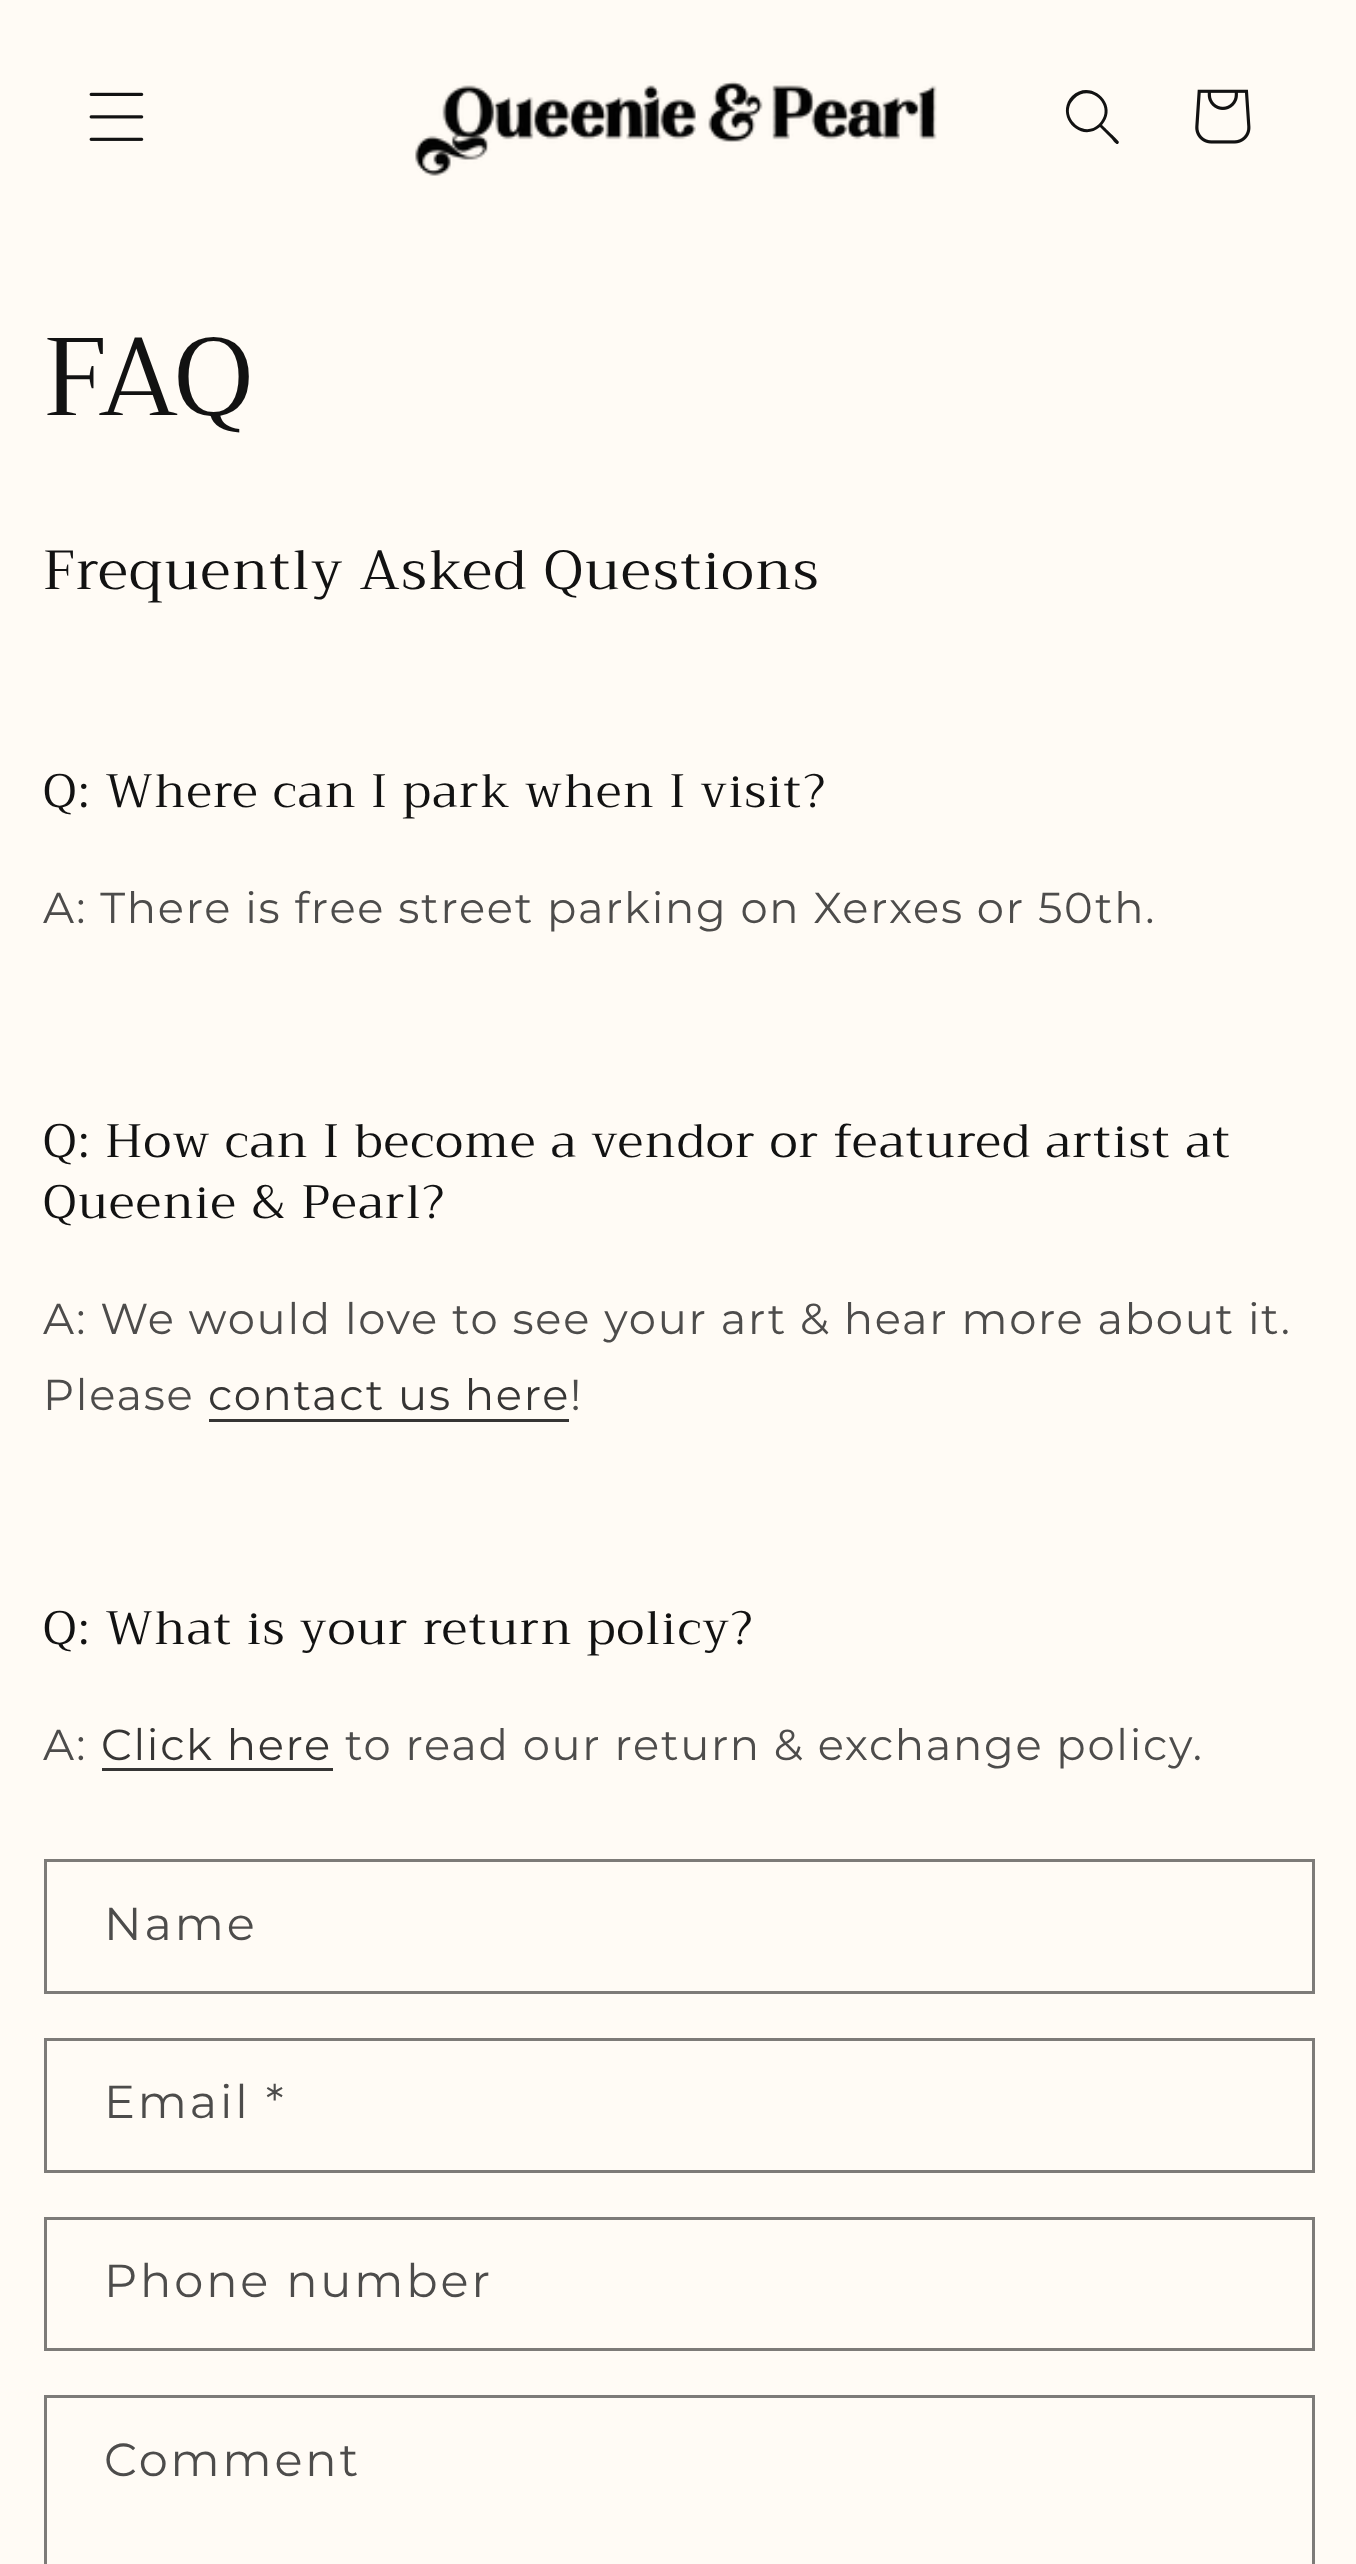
<!DOCTYPE html>
<meta charset="utf-8">
<style>body { margin: 0 } canvas { display: block }</style>
<canvas id="canvas" width="1356" height="2564"></canvas>
<script type="module">
  const canvas = document.getElementById("canvas");
  const ctx = canvas.getContext("2d");
  ctx.miterLimit = 4;
  ctx.fontKerning = "normal";
  async function loadImage(src) {
    const img = new Image();
    img.src = src;
    await img.decode();
    return img;
  }

  ctx.fillStyle = "#fffbf5";
  ctx.fillRect(0, 0, 1356, 2564);
  ctx.drawImage(await loadImage("img1.png"), 89, 92, 55, 49);
  ctx.drawImage(await loadImage("img2.png"), 415, 81, 522, 95);
  ctx.fillStyle = "#121212";
  ctx.beginPath();
  ctx.moveTo(1099, 124);
  ctx.bezierCurveTo(1083, 140, 1058, 115, 1074, 99);
  ctx.bezierCurveTo(1091, 82, 1116, 107, 1099, 124);
  ctx.closePath();
  ctx.moveTo(1100, 127);
  ctx.bezierCurveTo(1080, 144, 1054, 115, 1072, 96);
  ctx.bezierCurveTo(1091, 78, 1120, 105, 1102, 125);
  ctx.bezierCurveTo(1104, 127, 1119, 141, 1119, 142);
  ctx.lineTo(1118, 144);
  ctx.bezierCurveTo(1116, 145, 1112, 139, 1111, 138);
  ctx.closePath();
  ctx.fill("evenodd");
  ctx.drawImage(await loadImage("img3.png"), 1195, 89, 56, 55);
  ctx.letterSpacing = "1.65px";
  ctx.font = "110px Trirong";
  ctx.fillText("FAQ", 43, 415);
  ctx.font = "55px Trirong";
  ctx.fillText("Frequently Asked Questions", 43, 589);
  ctx.font = "46.75px Trirong";
  ctx.fillText("Q: Where can I park when I visit?", 43, 807);
  ctx.letterSpacing = "1.73px";
  ctx.font = "43.3px Montserrat";
  ctx.fillStyle = "#4d4c4b";
  ctx.fillText("A: There is free street parking on Xerxes or 50th.", 43, 923);
  ctx.letterSpacing = "1.65px";
  ctx.font = "46.75px Trirong";
  ctx.fillStyle = "#121212";
  ctx.fillText("Q: How can I become a vendor or featured artist at", 43, 1157);
  ctx.fillText("Queenie & Pearl?", 43, 1218);
  ctx.letterSpacing = "1.73px";
  ctx.font = "43.3px Montserrat";
  ctx.fillStyle = "#4d4c4b";
  ctx.fillText("A: We would love to see your art & hear more about it.", 43, 1334);
  ctx.fillText("Please", 43, 1410);
  ctx.fillStyle = "#363534";
  ctx.fillText("contact us here", 208, 1410);
  ctx.fillRect(209, 1419, 360, 3);
  ctx.fillStyle = "#4d4c4b";
  ctx.fillText("!", 570, 1410);
  ctx.letterSpacing = "1.65px";
  ctx.font = "46.75px Trirong";
  ctx.fillStyle = "#121212";
  ctx.fillText("Q: What is your return policy?", 43, 1644);
  ctx.letterSpacing = "1.73px";
  ctx.font = "43.3px Montserrat";
  ctx.fillStyle = "#4d4c4b";
  ctx.fillText("A:", 43, 1760);
  ctx.fillStyle = "#363534";
  ctx.fillText("Click here", 101, 1760);
  ctx.fillRect(102, 1768, 231, 3);
  ctx.fillStyle = "#4d4c4b";
  ctx.fillText("to read our return & exchange policy.", 345, 1760);
  ctx.strokeStyle = "#7d7b78";
  ctx.lineWidth = 3;
  ctx.strokeRect(45.5, 1860.5, 1268, 132);
  ctx.letterSpacing = "2.9px";
  ctx.font = "46.25px Montserrat";
  ctx.fillText("Name", 104, 1940);
  ctx.strokeRect(45.5, 2039.5, 1268, 132);
  ctx.fillText("Email *", 104, 2118);
  ctx.strokeRect(45.5, 2218.5, 1268, 131);
  ctx.fillText("Phone number", 104, 2297);
  ctx.strokeRect(45.5, 2396.5, 1268, 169);
  ctx.fillText("Comment", 104, 2476);
</script>
